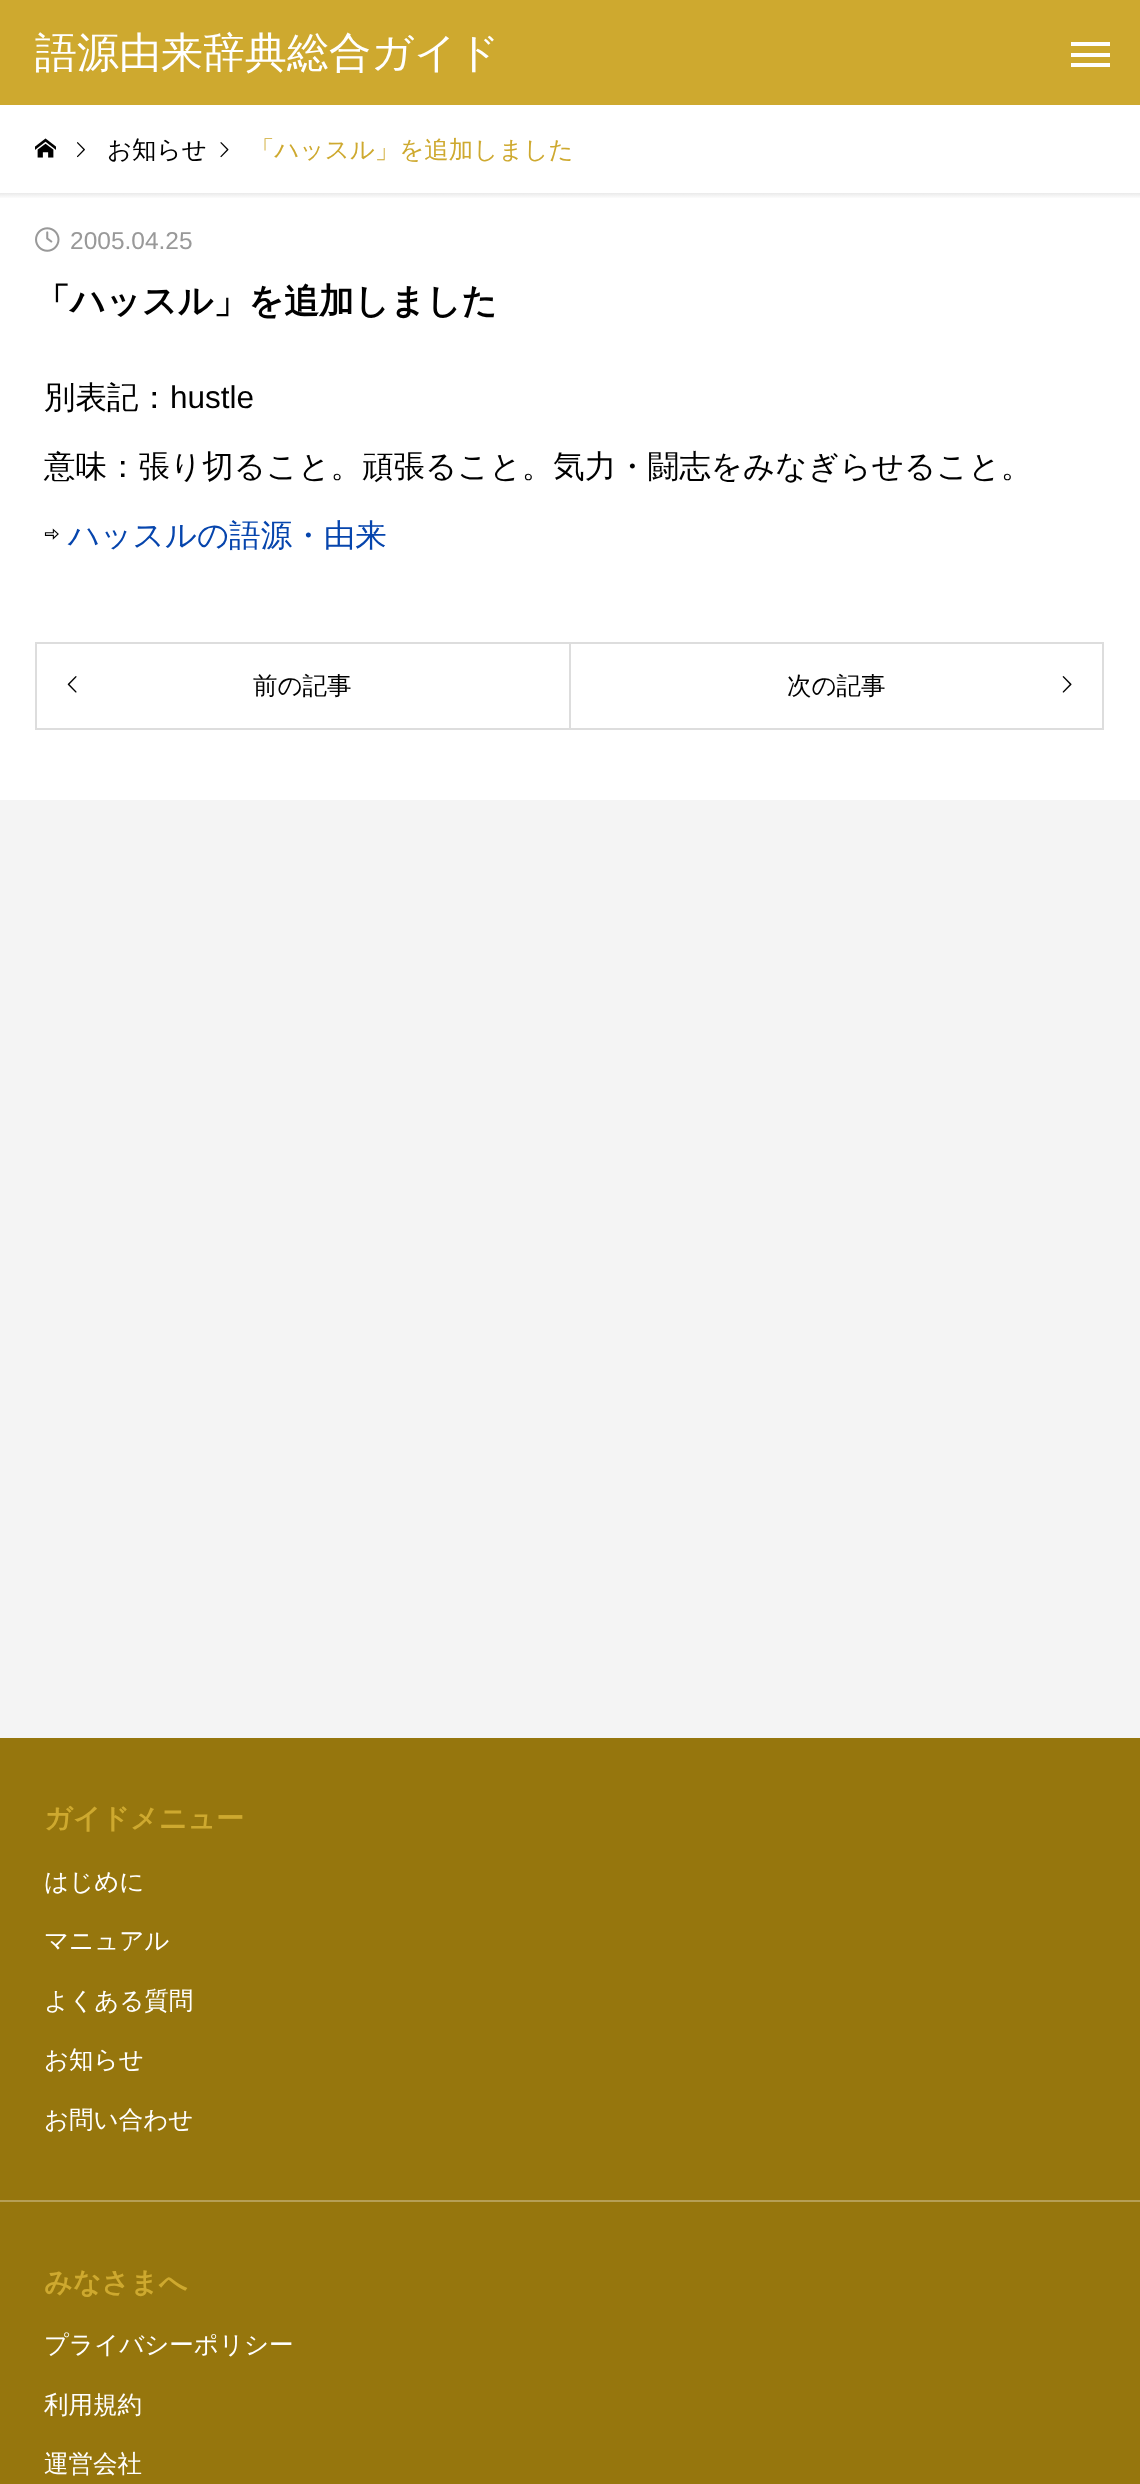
<!DOCTYPE html>
<meta charset="utf-8">
<style>body { margin: 0 } canvas { display: block }</style>
<canvas id="canvas" width="1140" height="2484"></canvas>
<script type="module">
  const canvas = document.getElementById("canvas");
  const ctx = canvas.getContext("2d");
  ctx.miterLimit = 4;
  ctx.fontKerning = "normal";
  async function loadImage(src) {
    const img = new Image();
    img.src = src;
    await img.decode();
    return img;
  }
  let gradient;

  ctx.fillStyle = "#ffffff";
  ctx.fillRect(0, 0, 1140, 2484);
  ctx.fillStyle = "#cea92f";
  ctx.fillRect(0, 0, 1140, 105);
  ctx.font = "500 42px WenQuanYi Zen Hei";
  ctx.fillStyle = "#ffffff";
  ctx.fillText("語源由来辞典総合ガイド", 35, 67);
  ctx.fillRect(1071, 42, 39, 4);
  ctx.fillRect(1071, 53, 39, 4);
  ctx.fillRect(1071, 63, 39, 4);
  ctx.drawImage(await loadImage("img1.png"), 35, 138, 21, 20);
  ctx.drawImage(await loadImage("img2.png"), 77, 142, 8, 16);
  ctx.font = "500 24.5px WenQuanYi Zen Hei";
  ctx.fillStyle = "#000000";
  ctx.fillText("お知らせ", 107, 158);
  ctx.drawImage(await loadImage("img3.png"), 220, 142, 9, 16);
  ctx.fillStyle = "#cea92f";
  ctx.fillText("「ハッスル」を追加しました", 250, 158);
  gradient = ctx.createLinearGradient(571, 192, 571, 198);
  gradient.addColorStop(0, "#e6e6e6");
  gradient.addColorStop(1, "#fcfcfc");
  ctx.fillStyle = gradient;
  ctx.fillRect(0, 193, 1140, 5);
  ctx.drawImage(await loadImage("img4.png"), 35, 227, 25, 25);
  ctx.font = "24.5px Liberation Sans";
  ctx.fillStyle = "#999999";
  ctx.fillText("2005.04.25", 70, 249);
  ctx.font = "bold 35px WenQuanYi Zen Hei";
  ctx.fillStyle = "#000000";
  ctx.fillText("「ハッスル」を追加しました", 35, 313);
  ctx.font = "500 31.5px WenQuanYi Zen Hei";
  ctx.fillText("別表記：", 44, 408);
  ctx.font = "31.5px Liberation Sans";
  ctx.fillText("hustle", 170, 408);
  ctx.font = "500 31.5px WenQuanYi Zen Hei";
  ctx.fillText("意味：張り切ること。頑張ること。気力・闘志をみなぎらせること。", 44, 477);
  ctx.font = "31.5px IPAPGothic";
  ctx.fillText("⇨", 44, 546);
  ctx.font = "500 31.5px WenQuanYi Zen Hei";
  ctx.fillStyle = "#0645ad";
  ctx.fillText("ハッスルの語源・由来", 68, 546);
  ctx.strokeStyle = "#dddddd";
  ctx.lineWidth = 2;
  ctx.strokeRect(36, 643, 534, 86);
  ctx.drawImage(await loadImage("img5.png"), 67, 676, 10, 17);
  ctx.font = "500 24.5px WenQuanYi Zen Hei";
  ctx.fillStyle = "#000000";
  ctx.fillText("前の記事", 253, 694);
  ctx.strokeRect(570, 643, 533, 86);
  ctx.fillText("次の記事", 787, 694);
  ctx.drawImage(await loadImage("img6.png"), 1062, 676, 10, 17);
  ctx.fillStyle = "#f4f4f4";
  ctx.fillRect(0, 800, 1140, 938);
  ctx.fillStyle = "#96760d";
  ctx.fillRect(0, 1738, 1140, 746);
  ctx.font = "bold 28px WenQuanYi Zen Hei";
  ctx.fillStyle = "#cea92f";
  ctx.fillText("ガイドメニュー", 44, 1828);
  ctx.font = "500 24.5px WenQuanYi Zen Hei";
  ctx.fillStyle = "#ffffff";
  ctx.fillText("はじめに", 44, 1890);
  ctx.fillText("マニュアル", 44, 1949);
  ctx.fillText("よくある質問", 44, 2009);
  ctx.fillText("お知らせ", 44, 2068);
  ctx.fillText("お問い合わせ", 44, 2128);
  ctx.fillStyle = "#b69f56";
  ctx.fillRect(0, 2200, 1140, 2);
  ctx.font = "bold 28px WenQuanYi Zen Hei";
  ctx.fillStyle = "#cea92f";
  ctx.fillText("みなさまへ", 44, 2292);
  ctx.font = "500 24.5px WenQuanYi Zen Hei";
  ctx.fillStyle = "#ffffff";
  ctx.fillText("プライバシーポリシー", 44, 2353);
  ctx.fillText("利用規約", 44, 2413);
  ctx.fillText("運営会社", 44, 2472);
</script>
